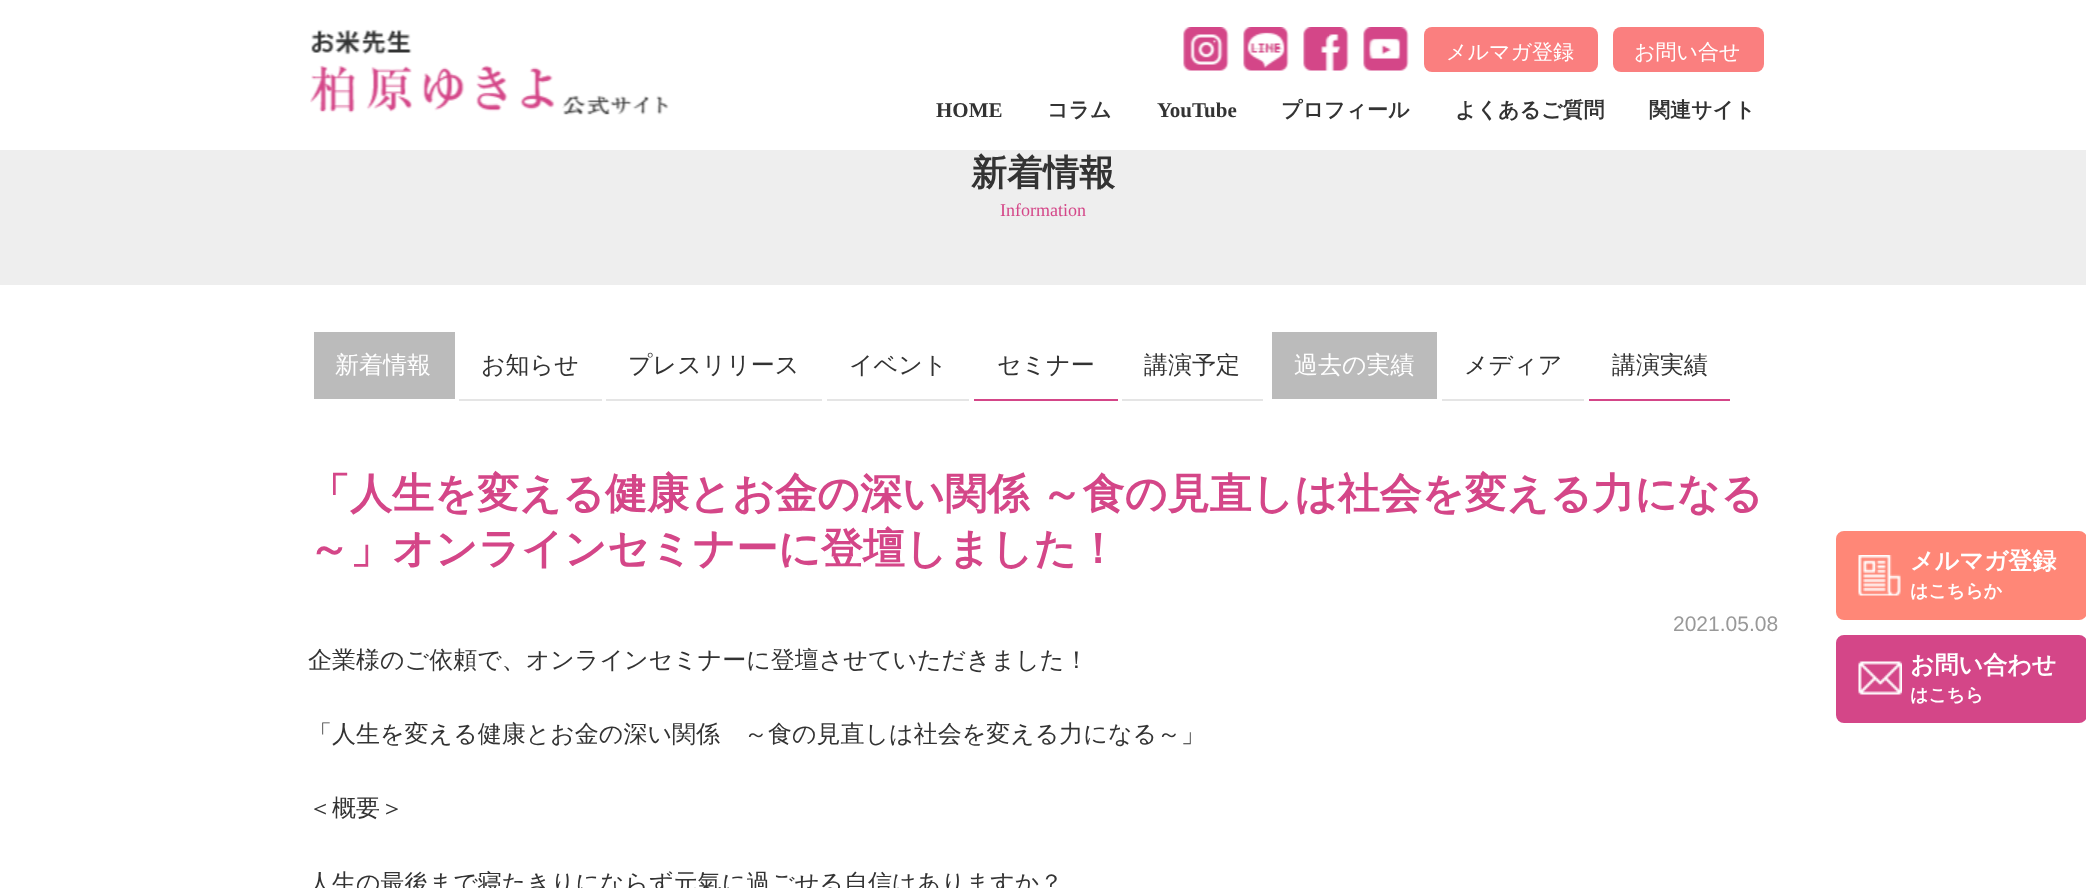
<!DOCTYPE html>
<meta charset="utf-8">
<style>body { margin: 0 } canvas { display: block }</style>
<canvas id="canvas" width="2086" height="888"></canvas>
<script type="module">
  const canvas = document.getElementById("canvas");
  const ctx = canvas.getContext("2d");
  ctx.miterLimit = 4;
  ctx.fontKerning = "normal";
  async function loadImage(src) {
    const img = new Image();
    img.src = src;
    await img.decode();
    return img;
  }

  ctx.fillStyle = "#ffffff";
  ctx.fillRect(0, 0, 2086, 888);
  ctx.drawImage(await loadImage("img1.png"), 310, 29, 359, 86);
  ctx.drawImage(await loadImage("img2.png"), 1183, 27, 46, 44);
  ctx.drawImage(await loadImage("img3.png"), 1243, 27, 46, 44);
  ctx.drawImage(await loadImage("img4.png"), 1303, 27, 46, 44);
  ctx.drawImage(await loadImage("img5.png"), 1363, 27, 46, 44);
  ctx.fillStyle = "#fa7f7f";
  ctx.beginPath();
  ctx.roundRect(1424, 27, 174, 45, 8);
  ctx.fill();
  ctx.font = "500 21px WenQuanYi Zen Hei";
  ctx.fillStyle = "#ffffff";
  ctx.fillText("メルマガ登録", 1446, 59);
  ctx.fillStyle = "#fa7f7f";
  ctx.beginPath();
  ctx.roundRect(1613, 27, 151, 45, 8);
  ctx.fill();
  ctx.fillStyle = "#ffffff";
  ctx.fillText("お問い合せ", 1634, 59);
  ctx.font = "bold 21px Liberation Serif";
  ctx.fillStyle = "#333333";
  ctx.fillText("HOME", 936, 117);
  ctx.font = "bold 21px WenQuanYi Zen Hei";
  ctx.fillText("コラム", 1047, 117);
  ctx.font = "bold 21px Liberation Serif";
  ctx.fillText("YouTube", 1157, 117);
  ctx.font = "bold 21px WenQuanYi Zen Hei";
  ctx.fillText("プロフィール", 1281, 117);
  ctx.fillText("よくあるご質問", 1455, 117);
  ctx.fillText("関連サイト", 1649, 117);
  ctx.fillStyle = "#eeeeee";
  ctx.fillRect(0, 150, 2086, 135);
  ctx.font = "bold 36px WenQuanYi Zen Hei";
  ctx.fillStyle = "#333333";
  ctx.fillText("新着情報", 971, 185);
  ctx.font = "18px Liberation Serif";
  ctx.fillStyle = "#d44688";
  ctx.fillText("Information", 1000, 216);
  ctx.fillStyle = "#bbbbbb";
  ctx.fillRect(314, 332, 141, 67);
  ctx.font = "500 24px WenQuanYi Zen Hei";
  ctx.fillStyle = "#ffffff";
  ctx.fillText("新着情報", 335, 373);
  ctx.fillStyle = "#e5e5e5";
  ctx.fillRect(459, 399, 143, 2);
  ctx.fillStyle = "#333333";
  ctx.fillText("お知らせ", 481, 373);
  ctx.fillStyle = "#e5e5e5";
  ctx.fillRect(606, 399, 216, 2);
  ctx.fillStyle = "#333333";
  ctx.fillText("プレスリリース", 628, 373);
  ctx.fillStyle = "#e5e5e5";
  ctx.fillRect(827, 399, 142, 2);
  ctx.fillStyle = "#333333";
  ctx.fillText("イベント", 849, 373);
  ctx.fillStyle = "#d44688";
  ctx.fillRect(974, 399, 144, 2);
  ctx.fillStyle = "#333333";
  ctx.fillText("セミナー", 997, 373);
  ctx.fillStyle = "#e5e5e5";
  ctx.fillRect(1122, 399, 141, 2);
  ctx.fillStyle = "#333333";
  ctx.fillText("講演予定", 1144, 373);
  ctx.fillStyle = "#bbbbbb";
  ctx.fillRect(1272, 332, 165, 67);
  ctx.fillStyle = "#ffffff";
  ctx.fillText("過去の実績", 1294, 373);
  ctx.fillStyle = "#e5e5e5";
  ctx.fillRect(1442, 399, 142, 2);
  ctx.fillStyle = "#333333";
  ctx.fillText("メディア", 1464, 373);
  ctx.fillStyle = "#d44688";
  ctx.fillRect(1589, 399, 141, 2);
  ctx.fillStyle = "#333333";
  ctx.fillText("講演実績", 1612, 373);
  ctx.wordSpacing = "-1px";
  ctx.font = "bold 42px WenQuanYi Zen Hei";
  ctx.fillStyle = "#d44688";
  ctx.fillText("「人生を変える健康とお金の深い関係 ～食の見直しは社会を変える力になる", 308, 508);
  ctx.wordSpacing = "0px";
  ctx.fillText("～」オンラインセミナーに登壇しました！", 308, 563);
  ctx.font = "21px Liberation Sans";
  ctx.fillStyle = "#999999";
  ctx.fillText("2021.05.08", 1673, 631);
  ctx.font = "500 24px WenQuanYi Zen Hei";
  ctx.fillStyle = "#333333";
  ctx.fillText("企業様のご依頼で、オンラインセミナーに登壇させていただきました！", 308, 668);
  ctx.fillText("「人生を変える健康とお金の深い関係　～食の見直しは社会を変える力になる～」", 308, 742);
  ctx.fillText("＜概要＞", 308, 816);
  ctx.fillText("人生の最後まで寝たきりにならず元氣に過ごせる自信はありますか？", 308, 891);
  ctx.fillStyle = "#ff8777";
  ctx.beginPath();
  ctx.roundRect(1836, 531, 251, 89, 8);
  ctx.fill();
  ctx.drawImage(await loadImage("img6.png"), 1858, 555, 43, 41);
  ctx.font = "bold 24px WenQuanYi Zen Hei";
  ctx.fillStyle = "#ffffff";
  ctx.fillText("メルマガ登録", 1910, 569);
  ctx.font = "bold 18px WenQuanYi Zen Hei";
  ctx.fillText("はこちらか", 1910, 597);
  ctx.fillStyle = "#d44688";
  ctx.beginPath();
  ctx.roundRect(1836, 635, 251, 88, 8);
  ctx.fill();
  ctx.drawImage(await loadImage("img7.png"), 1858, 661, 44, 34);
  ctx.font = "bold 24px WenQuanYi Zen Hei";
  ctx.fillStyle = "#ffffff";
  ctx.fillText("お問い合わせ", 1910, 673);
  ctx.font = "bold 18px WenQuanYi Zen Hei";
  ctx.fillText("はこちら", 1910, 701);
</script>
